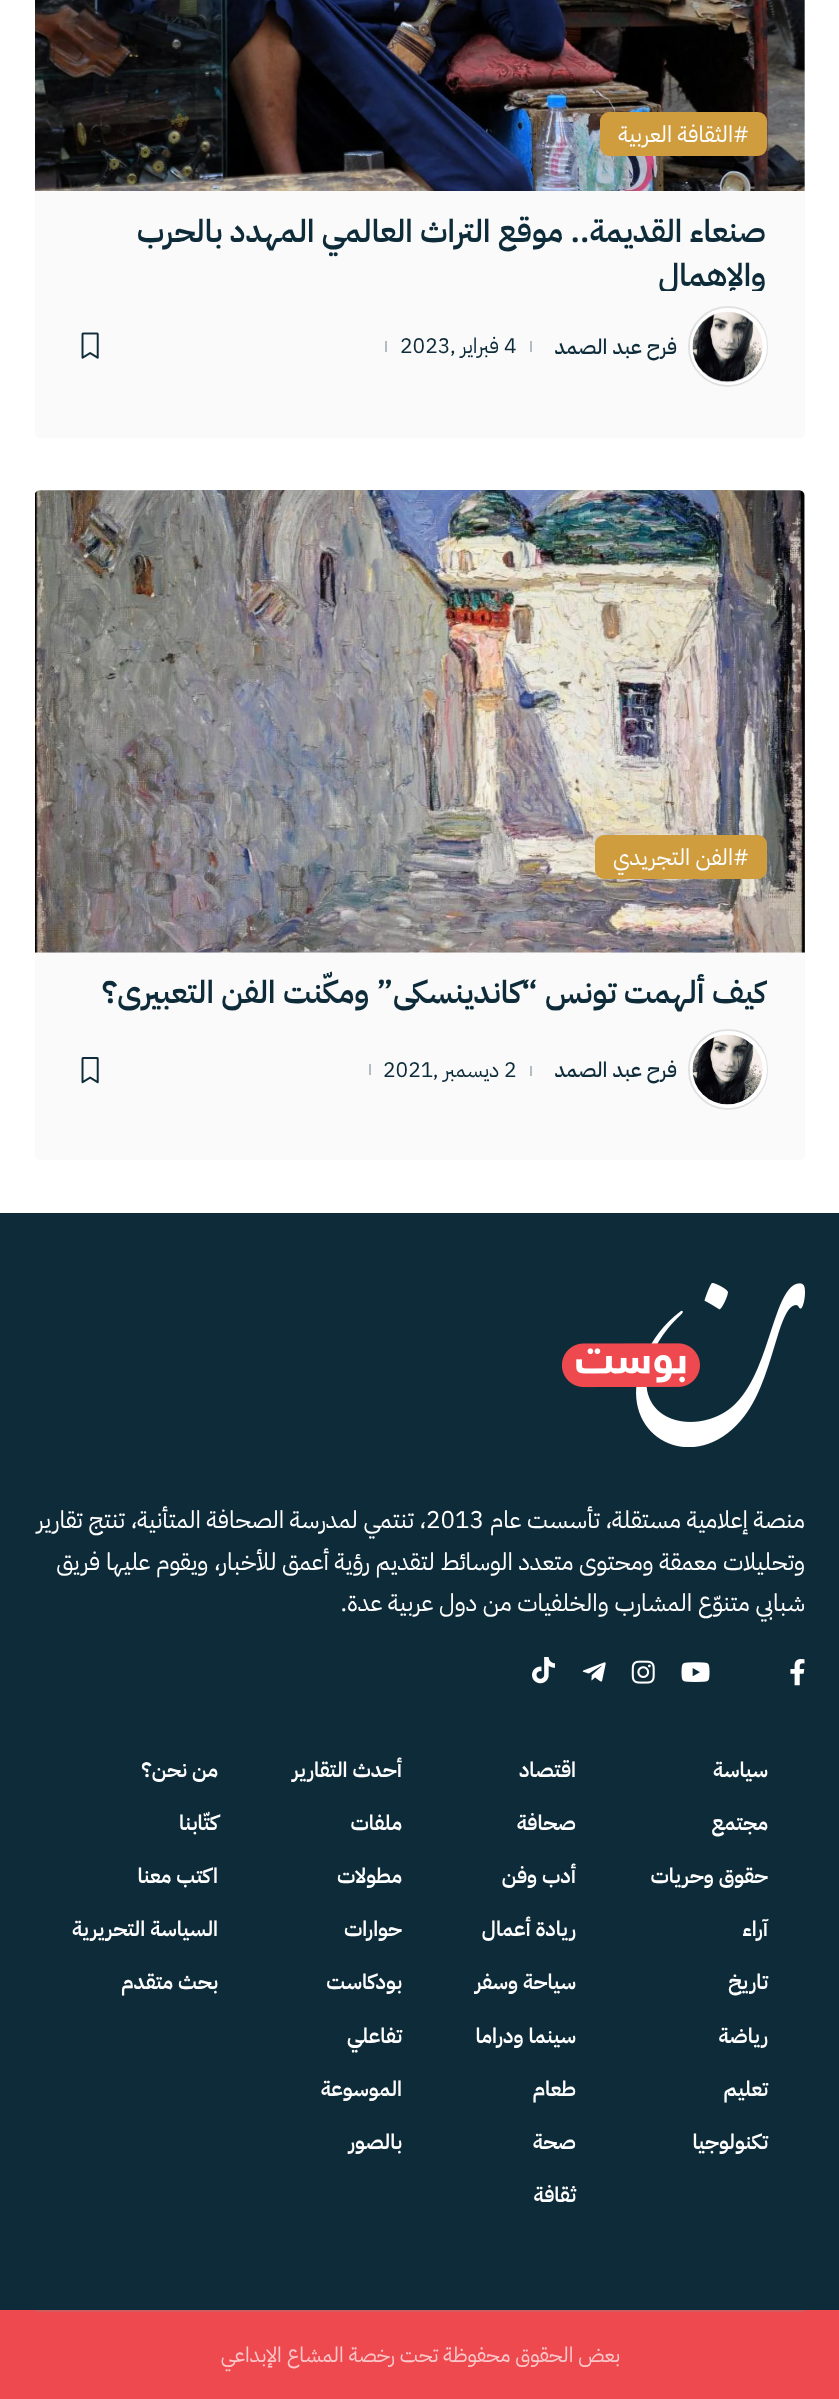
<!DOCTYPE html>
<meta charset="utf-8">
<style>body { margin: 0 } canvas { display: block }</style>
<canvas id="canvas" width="839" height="2399"></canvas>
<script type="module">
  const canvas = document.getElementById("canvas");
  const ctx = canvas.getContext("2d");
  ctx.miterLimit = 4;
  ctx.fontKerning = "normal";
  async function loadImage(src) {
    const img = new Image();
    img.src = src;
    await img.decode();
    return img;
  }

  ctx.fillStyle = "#ffffff";
  ctx.fillRect(0, 0, 839, 2399);
  ctx.fillStyle = "#fafafa";
  ctx.beginPath();
  ctx.roundRect(35, -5, 770, 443, 5);
  ctx.fill();
  ctx.drawImage(await loadImage("img1.png"), 35, 0, 770, 191);
  ctx.fillStyle = "#d09d3e";
  ctx.beginPath();
  ctx.roundRect(600, 112, 167, 44, 9);
  ctx.fill();
  ctx.font = "22.75px IBM Plex Sans Arabic";
  ctx.fillStyle = "#ffffff";
  ctx.fillText("#", 733, 142);
  ctx.direction = "rtl";
  ctx.fillText("الثقافة العربية", 733, 142);
  ctx.beginPath();
  ctx.roundRect(689, 307, 78, 79, 39);
  ctx.strokeStyle = "#e1e1e1";
  ctx.lineWidth = 2;
  ctx.stroke();
  ctx.beginPath();
  ctx.arc(728.5, 346.5, 36.5, 0, Math.PI * 2);
  ctx.strokeStyle = "#ffffff";
  ctx.lineWidth = 4;
  ctx.stroke();
  ctx.drawImage(await loadImage("img2.png"), 692, 311, 71, 72);
  ctx.font = "500 21px IBM Plex Sans Arabic";
  ctx.fillStyle = "#0e2b39";
  ctx.fillText("فرح عبد الصمد", 677, 354);
  ctx.fillStyle = "#b3bcc0";
  ctx.fillRect(530, 341, 2, 11);
  ctx.direction = "ltr";
  ctx.font = "21px IBM Plex Sans Arabic";
  ctx.fillStyle = "#0e2b39";
  ctx.fillText("4", 504, 353);
  ctx.direction = "rtl";
  ctx.fillText("فبراير ,", 499, 353);
  ctx.direction = "ltr";
  ctx.fillText("2023", 400, 353);
  ctx.fillStyle = "#b3bcc0";
  ctx.fillRect(385, 341, 2, 11);
  ctx.drawImage(await loadImage("img3.png"), 81, 332, 18, 27);
  ctx.direction = "rtl";
  ctx.font = "600 31.5px IBM Plex Sans Arabic";
  ctx.fillStyle = "#0e2b39";
  ctx.fillText("صنعاء القديمة.. موقع التراث العالمي المهدد بالحرب", 766, 242);
  ctx.save();
  ctx.beginPath();
  ctx.rect(74, 208, 693, 83);
  ctx.clip();
  ctx.fillText("والإهمال", 766, 286);
  ctx.restore();
  ctx.fillStyle = "#fafafa";
  ctx.beginPath();
  ctx.roundRect(35, 490, 770, 670, 5);
  ctx.fill();
  ctx.drawImage(await loadImage("img4.png"), 35, 490, 770, 463);
  ctx.fillStyle = "#d09d3e";
  ctx.beginPath();
  ctx.roundRect(595, 835, 172, 44, 9);
  ctx.fill();
  ctx.direction = "ltr";
  ctx.font = "22.75px IBM Plex Sans Arabic";
  ctx.fillStyle = "#ffffff";
  ctx.fillText("#", 733, 865);
  ctx.direction = "rtl";
  ctx.fillText("الفن التجريدي", 733, 865);
  ctx.beginPath();
  ctx.roundRect(689, 1030, 78, 79, 39);
  ctx.strokeStyle = "#e1e1e1";
  ctx.lineWidth = 2;
  ctx.stroke();
  ctx.beginPath();
  ctx.arc(728.5, 1069.5, 36.5, 0, Math.PI * 2);
  ctx.strokeStyle = "#ffffff";
  ctx.lineWidth = 4;
  ctx.stroke();
  ctx.drawImage(await loadImage("img5.png"), 692, 1034, 71, 71);
  ctx.font = "500 21px IBM Plex Sans Arabic";
  ctx.fillStyle = "#0e2b39";
  ctx.fillText("فرح عبد الصمد", 677, 1077);
  ctx.fillStyle = "#b3bcc0";
  ctx.fillRect(530, 1066, 2, 10);
  ctx.direction = "ltr";
  ctx.font = "21px IBM Plex Sans Arabic";
  ctx.fillStyle = "#0e2b39";
  ctx.fillText("2", 504, 1077);
  ctx.direction = "rtl";
  ctx.fillText("ديسمبر ,", 499, 1077);
  ctx.direction = "ltr";
  ctx.fillText("2021", 383, 1077);
  ctx.fillStyle = "#b3bcc0";
  ctx.fillRect(369, 1064, 2, 11);
  ctx.drawImage(await loadImage("img6.png"), 81, 1057, 18, 27);
  ctx.save();
  ctx.beginPath();
  ctx.rect(74, 970, 693, 43);
  ctx.clip();
  ctx.direction = "rtl";
  ctx.font = "600 31.5px IBM Plex Sans Arabic";
  ctx.fillStyle = "#0e2b39";
  ctx.fillText("كيف ألهمت تونس “كاندينسكي” ومكّنت الفن التعبيري؟", 766, 1003);
  ctx.restore();
  ctx.fillStyle = "#0e2b39";
  ctx.fillRect(0, 1213, 839, 1097);
  ctx.drawImage(await loadImage("img7.png"), 562, 1283, 243, 164);
  ctx.direction = "rtl";
  ctx.font = "24.15px IBM Plex Sans Arabic";
  ctx.fillStyle = "#ffffff";
  ctx.fillText("منصة إعلامية مستقلة، تأسست عام", 805, 1528);
  ctx.direction = "ltr";
  ctx.fillText("2013", 426, 1528);
  ctx.direction = "rtl";
  ctx.fillText("، تنتمي لمدرسة الصحافة المتأنية، تنتج تقارير", 426, 1528);
  ctx.fillText("وتحليلات معمقة ومحتوى متعدد الوسائط لتقديم رؤية أعمق للأخبار، ويقوم عليها فريق", 805, 1570);
  ctx.fillText("شبابي متنوّع المشارب والخلفيات من دول عربية عدة.", 805, 1611);
  ctx.drawImage(await loadImage("img8.png"), 790, 1659, 15, 27);
  ctx.drawImage(await loadImage("img9.png"), 681, 1662, 29, 20);
  ctx.drawImage(await loadImage("img10.png"), 631, 1660, 24, 24);
  ctx.drawImage(await loadImage("img11.png"), 582, 1662, 24, 20);
  ctx.drawImage(await loadImage("img12.png"), 532, 1657, 23, 27);
  ctx.font = "600 21px IBM Plex Sans Arabic";
  ctx.fillText("سياسة", 768, 1777);
  ctx.fillText("مجتمع", 768, 1830);
  ctx.fillText("حقوق وحريات", 768, 1883);
  ctx.fillText("آراء", 768, 1936);
  ctx.fillText("تاريخ", 768, 1989);
  ctx.fillText("رياضة", 768, 2043);
  ctx.fillText("تعليم", 768, 2096);
  ctx.fillText("تكنولوجيا", 768, 2149);
  ctx.fillText("اقتصاد", 576, 1777);
  ctx.fillText("صحافة", 576, 1830);
  ctx.fillText("أدب وفن", 576, 1883);
  ctx.fillText("ريادة أعمال", 576, 1936);
  ctx.fillText("سياحة وسفر", 576, 1989);
  ctx.fillText("سينما ودراما", 576, 2043);
  ctx.fillText("طعام", 576, 2096);
  ctx.fillText("صحة", 576, 2149);
  ctx.fillText("ثقافة", 576, 2202);
  ctx.fillText("أحدث التقارير", 402, 1777);
  ctx.fillText("ملفات", 402, 1830);
  ctx.fillText("مطولات", 402, 1883);
  ctx.fillText("حوارات", 402, 1936);
  ctx.fillText("بودكاست", 402, 1989);
  ctx.fillText("تفاعلي", 402, 2043);
  ctx.fillText("الموسوعة", 402, 2096);
  ctx.fillText("بالصور", 402, 2149);
  ctx.fillText("من نحن؟", 218, 1777);
  ctx.fillText("كتّابنا", 218, 1830);
  ctx.fillText("اكتب معنا", 218, 1883);
  ctx.fillText("السياسة التحريرية", 218, 1936);
  ctx.fillText("بحث متقدم", 218, 1989);
  ctx.fillStyle = "#ee494f";
  ctx.fillRect(0, 2310, 839, 89);
  ctx.fillStyle = "#d5595d";
  ctx.fillRect(35, 2310, 770, 2);
  ctx.font = "21px IBM Plex Sans Arabic";
  ctx.fillStyle = "#fac8ca";
  ctx.fillText("بعض الحقوق محفوظة تحت رخصة المشاع الإبداعي", 620, 2362);
</script>
